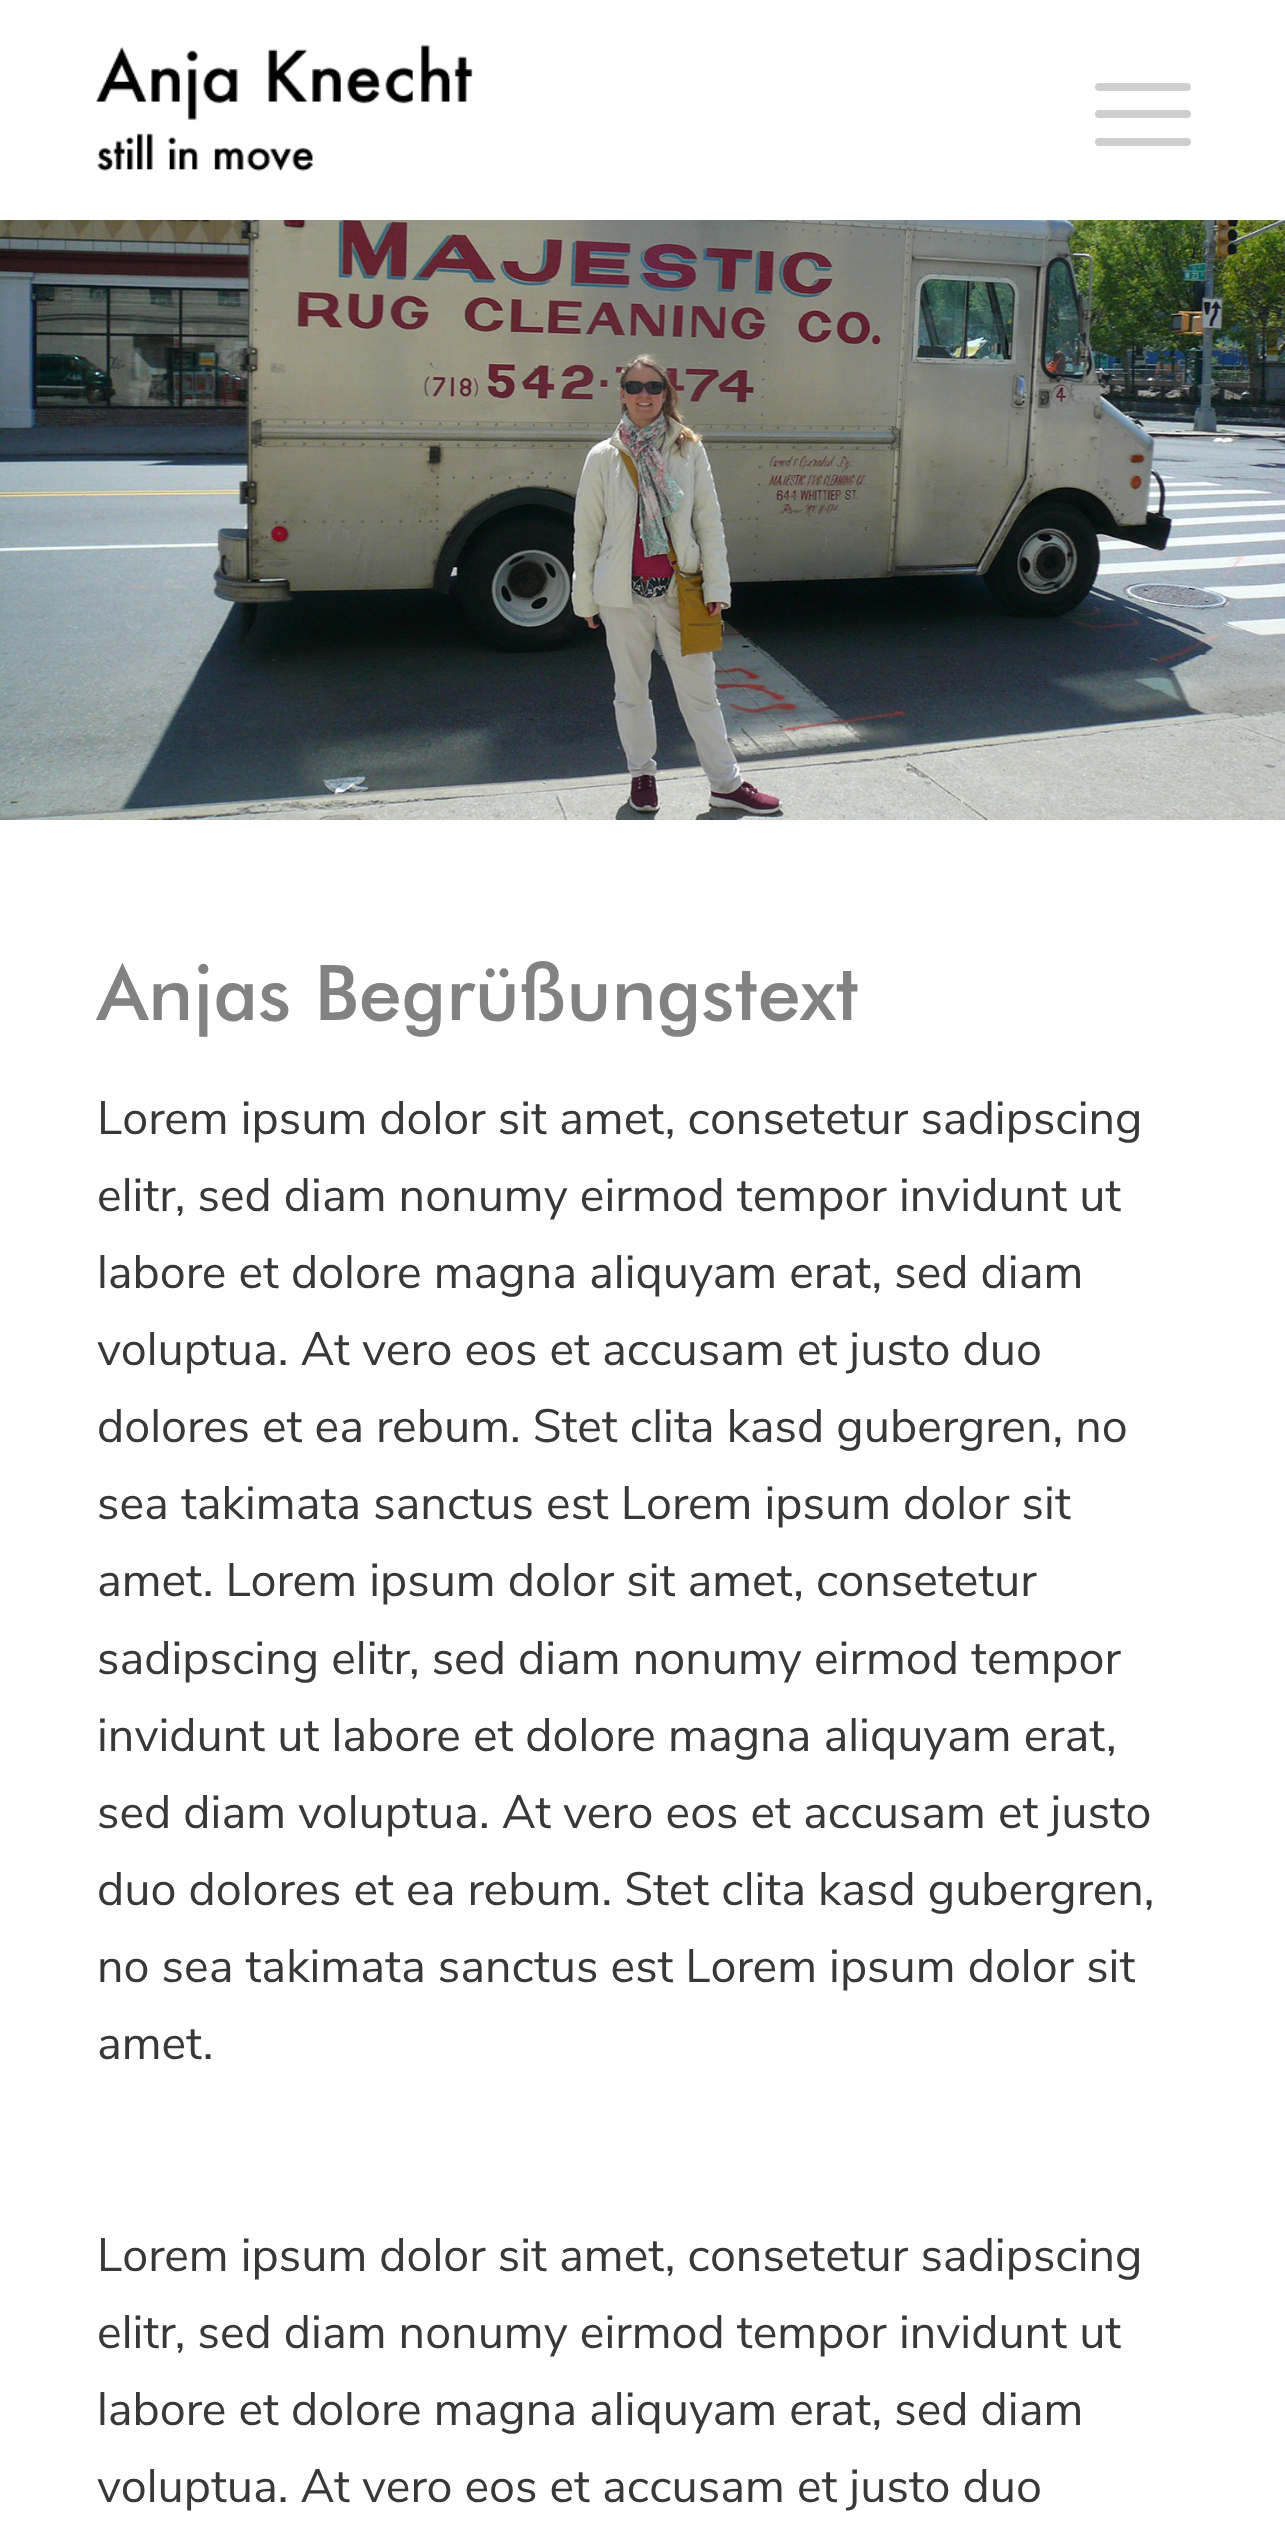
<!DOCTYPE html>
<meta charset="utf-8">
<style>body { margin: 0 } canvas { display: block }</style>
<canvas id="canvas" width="1285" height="2535"></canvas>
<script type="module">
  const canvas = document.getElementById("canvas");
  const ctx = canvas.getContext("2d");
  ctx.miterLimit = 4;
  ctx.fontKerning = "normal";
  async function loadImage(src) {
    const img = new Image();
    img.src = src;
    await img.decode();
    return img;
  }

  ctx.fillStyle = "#ffffff";
  ctx.fillRect(0, 0, 1285, 2535);
  ctx.drawImage(await loadImage("img1.png"), 96, 45, 377, 126);
  ctx.fillStyle = "#cfcfcf";
  ctx.beginPath();
  ctx.roundRect(1095, 110, 96, 8, 4);
  ctx.fill();
  ctx.beginPath();
  ctx.roundRect(1095, 83, 96, 8, 4);
  ctx.fill();
  ctx.beginPath();
  ctx.roundRect(1095, 138, 96, 8, 4);
  ctx.fill();
  ctx.drawImage(await loadImage("img2.png"), 0, 220, 1285, 600);
  ctx.font = "77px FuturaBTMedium";
  ctx.fillStyle = "#828282";
  ctx.fillText("Anjas Begrüßungstext", 97, 1020);
  ctx.font = "46.75px Nunito Sans";
  ctx.fillStyle = "#383838";
  ctx.fillText("Lorem ipsum dolor sit amet, consetetur sadipscing", 97, 1134);
  ctx.fillText("elitr, sed diam nonumy eirmod tempor invidunt ut", 97, 1211);
  ctx.fillText("labore et dolore magna aliquyam erat, sed diam", 97, 1288);
  ctx.fillText("voluptua. At vero eos et accusam et justo duo", 97, 1365);
  ctx.fillText("dolores et ea rebum. Stet clita kasd gubergren, no", 97, 1442);
  ctx.fillText("sea takimata sanctus est Lorem ipsum dolor sit", 97, 1519);
  ctx.fillText("amet. Lorem ipsum dolor sit amet, consetetur", 97, 1596);
  ctx.fillText("sadipscing elitr, sed diam nonumy eirmod tempor", 97, 1674);
  ctx.fillText("invidunt ut labore et dolore magna aliquyam erat,", 97, 1751);
  ctx.fillText("sed diam voluptua. At vero eos et accusam et justo", 97, 1828);
  ctx.fillText("duo dolores et ea rebum. Stet clita kasd gubergren,", 97, 1905);
  ctx.fillText("no sea takimata sanctus est Lorem ipsum dolor sit", 97, 1982);
  ctx.fillText("amet.", 97, 2059);
  ctx.fillText("Lorem ipsum dolor sit amet, consetetur sadipscing", 97, 2271);
  ctx.fillText("elitr, sed diam nonumy eirmod tempor invidunt ut", 97, 2348);
  ctx.fillText("labore et dolore magna aliquyam erat, sed diam", 97, 2425);
  ctx.fillText("voluptua. At vero eos et accusam et justo duo", 97, 2502);
</script>
